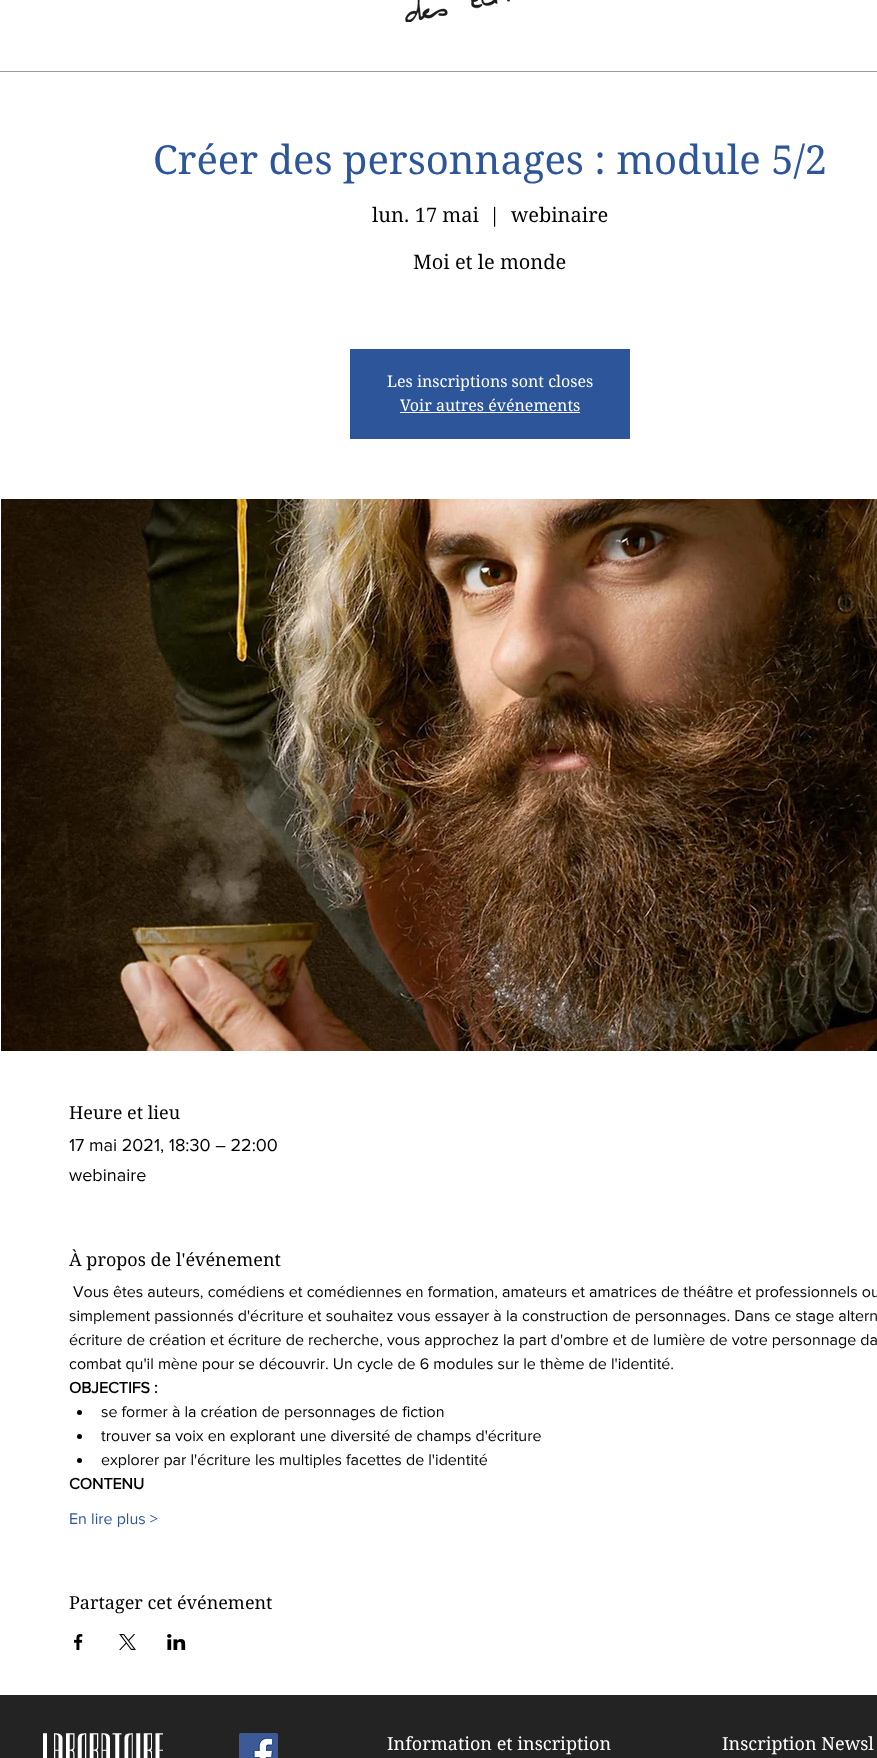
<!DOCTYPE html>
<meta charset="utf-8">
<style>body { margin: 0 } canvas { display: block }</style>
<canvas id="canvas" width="877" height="1758"></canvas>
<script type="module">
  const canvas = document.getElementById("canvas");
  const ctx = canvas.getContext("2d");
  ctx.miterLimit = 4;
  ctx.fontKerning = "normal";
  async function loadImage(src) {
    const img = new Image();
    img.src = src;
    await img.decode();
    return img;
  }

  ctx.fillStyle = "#ffffff";
  ctx.fillRect(0, 0, 877, 1758);
  ctx.drawImage(await loadImage("img1.png"), 405, 0, 105, 22);
  ctx.fillStyle = "#999999";
  ctx.fillRect(0, 71, 877, 1);
  ctx.font = "40px 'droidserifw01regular'";
  ctx.fillStyle = "#2d5599";
  ctx.fillText("Créer des personnages : module 5/2", 153, 174);
  ctx.font = "20px 'droidserifw01regular'";
  ctx.fillStyle = "#000000";
  ctx.fillText("lun. 17 mai", 372, 222);
  ctx.fillText("|", 489, 222);
  ctx.fillText("webinaire", 511, 222);
  ctx.fillText("Moi et le monde", 413, 269);
  ctx.fillStyle = "#2d5599";
  ctx.fillRect(350, 349, 280, 90);
  ctx.font = "16px 'droidserifw01regular'";
  ctx.fillStyle = "#ffffff";
  ctx.fillText("Les inscriptions sont closes", 387, 387);
  ctx.fillText("Voir autres événements", 400, 411);
  ctx.fillRect(400, 412, 180, 1);
  ctx.drawImage(await loadImage("img2.png"), 1, 499, 876, 552);
  ctx.font = "18px 'droidserifw01regular'";
  ctx.fillStyle = "#000000";
  ctx.fillText("Heure et lieu", 69, 1119);
  ctx.font = "18px 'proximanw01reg'";
  ctx.fillText("17 mai 2021, 18:30 – 22:00", 69, 1151);
  ctx.fillText("webinaire", 69, 1181);
  ctx.font = "18px 'droidserifw01regular'";
  ctx.fillText("À propos de l'événement", 69, 1266);
  ctx.font = "16px 'proximanw01reg'";
  ctx.fillText("Vous êtes auteurs, comédiens et comédiennes en formation, amateurs et amatrices de théâtre et professionnels ou", 73, 1297);
  ctx.fillText("simplement passionnés d'écriture et souhaitez vous essayer à la construction de personnages. Dans ce stage altern", 69, 1321);
  ctx.fillText("écriture de création et écriture de recherche, vous approchez la part d'ombre et de lumière de votre personnage da", 69, 1345);
  ctx.fillText("combat qu'il mène pour se découvrir. Un cycle de 6 modules sur le thème de l'identité.", 69, 1369);
  ctx.font = "bold 16px 'proximanw01reg'";
  ctx.fillText("OBJECTIFS :", 69, 1393);
  ctx.beginPath();
  ctx.arc(79.5, 1412.5, 2.5, 0, Math.PI * 2);
  ctx.fill();
  ctx.font = "16px 'proximanw01reg'";
  ctx.fillText("se former à la création de personnages de fiction", 101, 1417);
  ctx.beginPath();
  ctx.arc(79.5, 1436.5, 2.5, 0, Math.PI * 2);
  ctx.fill();
  ctx.fillText("trouver sa voix en explorant une diversité de champs d'écriture", 101, 1441);
  ctx.beginPath();
  ctx.arc(79.5, 1460.5, 2.5, 0, Math.PI * 2);
  ctx.fill();
  ctx.fillText("explorer par l'écriture les multiples facettes de l'identité", 101, 1465);
  ctx.font = "bold 16px 'proximanw01reg'";
  ctx.fillText("CONTENU", 69, 1489);
  ctx.font = "16px 'proximanw01reg'";
  ctx.fillStyle = "#2d5599";
  ctx.fillText("En lire plus >", 69, 1524);
  ctx.font = "18px 'droidserifw01regular'";
  ctx.fillStyle = "#000000";
  ctx.fillText("Partager cet événement", 69, 1609);
  ctx.drawImage(await loadImage("img3.png"), 74, 1634, 9, 16);
  ctx.drawImage(await loadImage("img4.png"), 119, 1634, 17, 16);
  ctx.drawImage(await loadImage("img5.png"), 167, 1634, 19, 16);
  ctx.fillStyle = "#242323";
  ctx.fillRect(0, 1695, 877, 63);
  ctx.drawImage(await loadImage("img6.png"), 43, 1733, 120, 25);
  ctx.drawImage(await loadImage("img7.png"), 239, 1733, 39, 25);
  ctx.fillStyle = "#ffffff";
  ctx.fillText("Information et inscription", 387, 1750);
  ctx.fillText("Inscription Newsl", 722, 1750);
</script>
